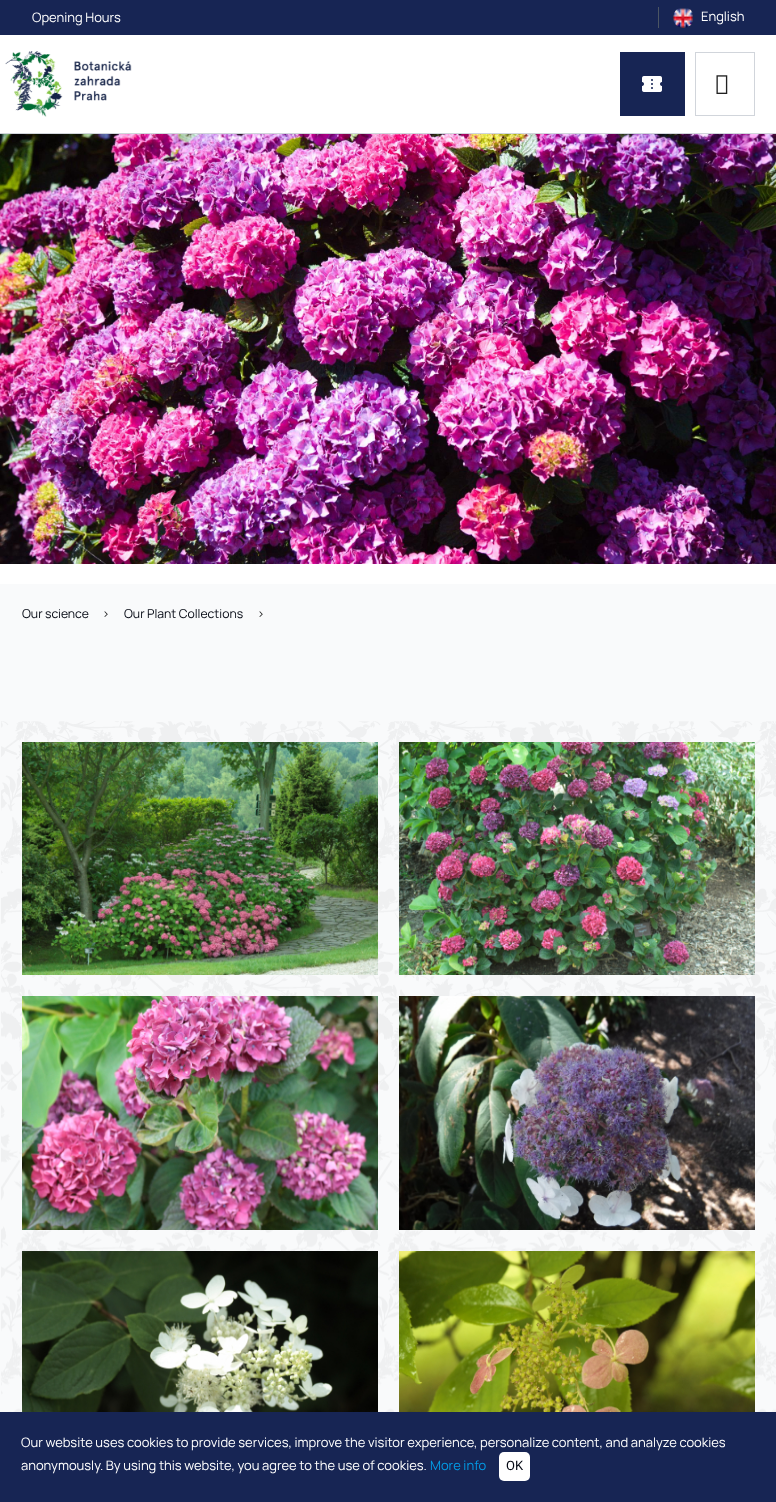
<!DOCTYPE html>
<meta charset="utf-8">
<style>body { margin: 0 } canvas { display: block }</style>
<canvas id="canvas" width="776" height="1502"></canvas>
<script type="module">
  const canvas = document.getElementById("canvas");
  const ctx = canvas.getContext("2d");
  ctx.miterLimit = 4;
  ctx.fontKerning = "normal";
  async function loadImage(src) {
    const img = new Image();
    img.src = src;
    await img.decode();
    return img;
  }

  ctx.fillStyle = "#ffffff";
  ctx.fillRect(0, 0, 776, 1502);
  ctx.fillStyle = "#172554";
  ctx.fillRect(0, 0, 776, 35);
  ctx.font = "13px Manrope";
  ctx.fillStyle = "#ffffff";
  ctx.fillText("Opening Hours", 32, 22);
  ctx.fillStyle = "#4b5563";
  ctx.fillRect(658, 7, 1, 21);
  ctx.drawImage(await loadImage("img1.png"), 673, 8, 20, 20);
  ctx.fillStyle = "#ffffff";
  ctx.fillText("English", 701, 21);
  ctx.fillStyle = "#d1d5db";
  ctx.fillRect(0, 133, 776, 1);
  ctx.drawImage(await loadImage("img2.png"), 5, 51, 127, 66);
  ctx.fillStyle = "#172554";
  ctx.fillRect(620, 52, 65, 64);
  ctx.drawImage(await loadImage("img3.png"), 642, 76, 20, 16);
  ctx.strokeStyle = "#d1d5db";
  ctx.strokeRect(695.5, 52.5, 59, 63);
  ctx.drawImage(await loadImage("img4.png"), 716, 75, 12, 19);
  ctx.drawImage(await loadImage("img5.png"), 0, 134, 776, 430);
  ctx.fillStyle = "#f9fafb";
  ctx.fillRect(0, 584, 776, 828);
  ctx.font = "12.25px Manrope";
  ctx.fillStyle = "#030712";
  ctx.fillText("Our science", 22, 618);
  ctx.fillStyle = "#202121";
  ctx.fillText(">", 102, 618);
  ctx.fillStyle = "#030712";
  ctx.fillText("Our Plant Collections", 124, 618);
  ctx.fillStyle = "#202121";
  ctx.fillText(">", 257, 618);
  ctx.drawImage(await loadImage("img6.png"), 1, 721, 775, 691);
  ctx.drawImage(await loadImage("img7.png"), 22, 742, 356, 233);
  ctx.drawImage(await loadImage("img8.png"), 399, 742, 356, 233);
  ctx.drawImage(await loadImage("img9.png"), 22, 996, 356, 234);
  ctx.drawImage(await loadImage("img10.png"), 399, 996, 356, 234);
  ctx.drawImage(await loadImage("img11.png"), 22, 1251, 356, 161);
  ctx.drawImage(await loadImage("img12.png"), 399, 1251, 356, 161);
  ctx.fillStyle = "#172554";
  ctx.fillRect(0, 1412, 776, 90);
  ctx.font = "13px Manrope";
  ctx.fillStyle = "#ffffff";
  ctx.fillText("Our website uses cookies to provide services, improve the visitor experience, personalize content, and analyze cookies", 21, 1447);
  ctx.fillText("anonymously. By using this website, you agree to the use of cookies.", 21, 1470);
  ctx.fillStyle = "#039be5";
  ctx.fillText("More info", 430, 1470);
  ctx.fillStyle = "#ffffff";
  ctx.beginPath();
  ctx.roundRect(499, 1452, 31, 29, 5);
  ctx.fill();
  ctx.font = "13px Roboto";
  ctx.fillStyle = "#030712";
  ctx.fillText("OK", 506, 1470);
</script>
